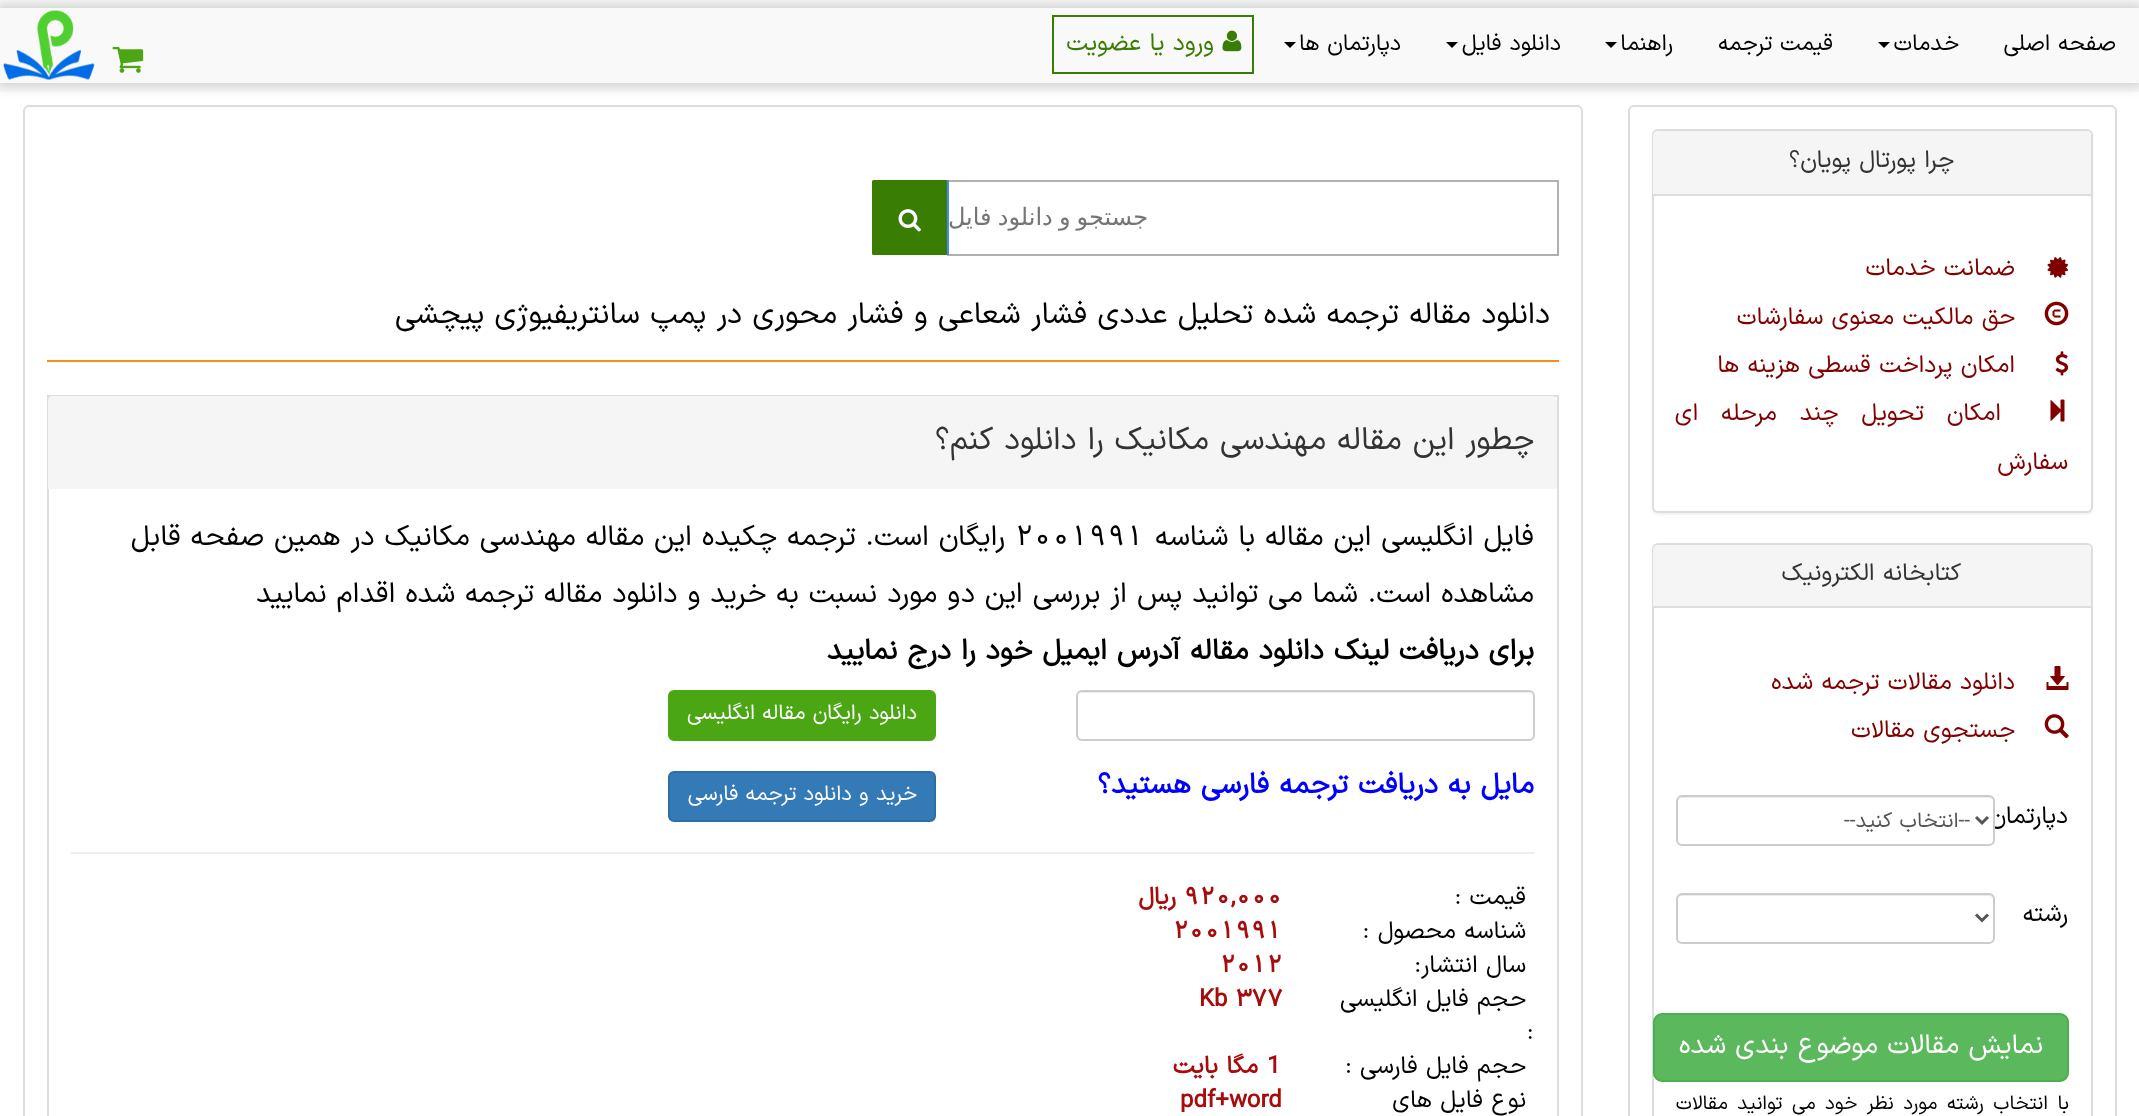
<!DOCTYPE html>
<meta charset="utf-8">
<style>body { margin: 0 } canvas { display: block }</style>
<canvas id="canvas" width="2139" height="1116"></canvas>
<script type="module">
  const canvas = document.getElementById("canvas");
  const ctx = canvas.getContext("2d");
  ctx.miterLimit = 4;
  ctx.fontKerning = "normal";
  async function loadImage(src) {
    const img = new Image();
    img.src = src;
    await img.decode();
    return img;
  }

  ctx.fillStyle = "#ffffff";
  ctx.fillRect(0, 0, 2139, 1116);
  ctx.fillStyle = "#f9f9f9";
  ctx.fillRect(0, 0, 2139, 92);
  ctx.fillStyle = "#cccccc";
  ctx.filter = "blur(6px)";
  ctx.beginPath();
  ctx.rect(-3, 5, 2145, 81);
  ctx.fill();
  ctx.filter = "none";
  ctx.fillStyle = "#f9f9f9";
  ctx.fillRect(0, 8, 2139, 75);
  ctx.direction = "rtl";
  ctx.font = "22.5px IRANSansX";
  ctx.fillStyle = "#000000";
  ctx.fillText("صفحه اصلی", 2116, 50);
  ctx.fillText("خدمات", 1959, 50);
  ctx.beginPath();
  ctx.moveTo(1878, 42);
  ctx.lineTo(1890, 42);
  ctx.lineTo(1884, 48);
  ctx.closePath();
  ctx.fill();
  ctx.fillText("قیمت ترجمه", 1833, 50);
  ctx.fillText("راهنما", 1673, 50);
  ctx.beginPath();
  ctx.moveTo(1605, 42);
  ctx.lineTo(1617, 42);
  ctx.lineTo(1611, 48);
  ctx.closePath();
  ctx.fill();
  ctx.fillText("دانلود فایل", 1561, 50);
  ctx.beginPath();
  ctx.moveTo(1446, 42);
  ctx.lineTo(1458, 42);
  ctx.lineTo(1452, 48);
  ctx.closePath();
  ctx.fill();
  ctx.fillText("دپارتمان ها", 1401, 50);
  ctx.beginPath();
  ctx.moveTo(1284, 42);
  ctx.lineTo(1296, 42);
  ctx.lineTo(1290, 48);
  ctx.closePath();
  ctx.fill();
  ctx.strokeStyle = "#397d02";
  ctx.lineWidth = 2;
  ctx.strokeRect(1053, 16, 200, 57);
  ctx.drawImage(await loadImage("img1.png"), 1222, 30, 20, 22);
  ctx.font = "24px IRANSansX";
  ctx.fillStyle = "#397d02";
  ctx.fillText("ورود یا عضویت", 1214, 50);
  ctx.drawImage(await loadImage("img2.png"), 112, 46, 32, 27);
  ctx.drawImage(await loadImage("img3.png"), 3, 10, 92, 70);
  ctx.beginPath();
  ctx.roundRect(1629, 106, 487, 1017, 5);
  ctx.strokeStyle = "#dddddd";
  ctx.stroke();
  ctx.fillStyle = "rgba(0, 0, 0, 0.05)";
  ctx.filter = "blur(1px)";
  ctx.beginPath();
  ctx.roundRect(1652, 131, 441, 384, 6);
  ctx.fill();
  ctx.filter = "none";
  ctx.fillStyle = "#ffffff";
  ctx.beginPath();
  ctx.roundRect(1653, 130, 439, 382, 5);
  ctx.fill();
  ctx.stroke();
  ctx.fillStyle = "#f5f5f5";
  ctx.beginPath();
  ctx.roundRect(1653, 131, 438, 64, [5, 5, 0, 0]);
  ctx.fill();
  ctx.fillStyle = "#dddddd";
  ctx.fillRect(1653, 194, 438, 2);
  ctx.fillStyle = "#333333";
  ctx.fillText("چرا پورتال پویان؟", 1954, 167);
  ctx.drawImage(await loadImage("img4.png"), 2047, 257, 21, 21);
  ctx.fillStyle = "#800000";
  ctx.fillText("ضمانت خدمات", 2015, 275);
  ctx.drawImage(await loadImage("img5.png"), 2044, 301, 25, 25);
  ctx.fillText("حق مالکیت معنوی سفارشات", 2015, 324);
  ctx.drawImage(await loadImage("img6.png"), 2055, 351, 14, 25);
  ctx.fillText("امکان پرداخت قسطی هزینه ها", 2015, 372);
  ctx.drawImage(await loadImage("img7.png"), 2050, 399, 15, 23);
  ctx.wordSpacing = "14.5px";
  ctx.fillText("امکان تحویل چند مرحله ای", 2001, 420);
  ctx.wordSpacing = "0px";
  ctx.fillText("سفارش", 2068, 469);
  ctx.beginPath();
  ctx.roundRect(1653, 544, 439, 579, 5);
  ctx.stroke();
  ctx.fillStyle = "#f5f5f5";
  ctx.beginPath();
  ctx.roundRect(1653, 545, 438, 63, [5, 5, 0, 0]);
  ctx.fill();
  ctx.fillStyle = "#dddddd";
  ctx.fillRect(1653, 606, 438, 2);
  ctx.fillStyle = "#333333";
  ctx.fillText("کتابخانه الکترونیک", 1961, 580);
  ctx.drawImage(await loadImage("img8.png"), 2046, 666, 23, 24);
  ctx.fillStyle = "#800000";
  ctx.fillText("دانلود مقالات ترجمه شده", 2015, 689);
  ctx.drawImage(await loadImage("img9.png"), 2044, 714, 25, 25);
  ctx.fillText("جستجوی مقالات", 2015, 737);
  ctx.fillStyle = "#000000";
  ctx.fillText("دپارتمان", 2068, 823);
  ctx.fillStyle = "#ffffff";
  ctx.beginPath();
  ctx.roundRect(1676, 795, 319, 51, 6);
  ctx.fill();
  ctx.fillStyle = "#ececec";
  ctx.beginPath();
  ctx.moveTo(1682, 798);
  ctx.lineTo(1989, 798);
  ctx.bezierCurveTo(1991, 798, 1994, 800, 1994, 802);
  ctx.bezierCurveTo(1994, 799, 1992, 797, 1989, 797);
  ctx.lineTo(1682, 797);
  ctx.bezierCurveTo(1679, 797, 1677, 799, 1677, 802);
  ctx.bezierCurveTo(1677, 800, 1679, 798, 1682, 798);
  ctx.closePath();
  ctx.fill();
  ctx.beginPath();
  ctx.roundRect(1677, 796, 317, 49, 5);
  ctx.strokeStyle = "#cccccc";
  ctx.stroke();
  ctx.beginPath();
  ctx.moveTo(1976, 817);
  ctx.lineTo(1982, 823);
  ctx.lineTo(1988, 817);
  ctx.strokeStyle = "#555555";
  ctx.lineWidth = 3;
  ctx.stroke();
  ctx.font = "21px IRANSansX";
  ctx.fillStyle = "#555555";
  ctx.fillText("--انتخاب کنید--", 1970, 827);
  ctx.font = "24px IRANSansX";
  ctx.fillStyle = "#000000";
  ctx.fillText("رشته", 2068, 921);
  ctx.fillStyle = "#ececec";
  ctx.beginPath();
  ctx.moveTo(1682, 896);
  ctx.lineTo(1989, 896);
  ctx.bezierCurveTo(1991, 896, 1994, 898, 1994, 900);
  ctx.bezierCurveTo(1994, 897, 1992, 894, 1989, 894);
  ctx.lineTo(1682, 894);
  ctx.bezierCurveTo(1679, 894, 1677, 897, 1677, 900);
  ctx.bezierCurveTo(1677, 898, 1679, 896, 1682, 896);
  ctx.closePath();
  ctx.fill();
  ctx.beginPath();
  ctx.roundRect(1677, 894, 317, 49, 5);
  ctx.strokeStyle = "#cccccc";
  ctx.lineWidth = 2;
  ctx.stroke();
  ctx.beginPath();
  ctx.moveTo(1976, 914.5);
  ctx.lineTo(1982, 920.5);
  ctx.lineTo(1988, 914.5);
  ctx.strokeStyle = "#555555";
  ctx.lineWidth = 3;
  ctx.stroke();
  ctx.fillStyle = "#5cb85c";
  ctx.beginPath();
  ctx.roundRect(1654, 1014, 414, 67, 8);
  ctx.fill();
  ctx.strokeStyle = "#4cae4c";
  ctx.lineWidth = 2;
  ctx.stroke();
  ctx.font = "27px IRANSansX";
  ctx.fillStyle = "#ffffff";
  ctx.fillText("نمایش مقالات موضوع بندی شده", 2043, 1053);
  ctx.wordSpacing = "2.75px";
  ctx.font = "19.5px IRANSansX";
  ctx.fillStyle = "#000000";
  ctx.fillText("با انتخاب رشته مورد نظر خود می توانید مقالات", 2069, 1109);
  ctx.beginPath();
  ctx.roundRect(24, 106, 1558, 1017, 5);
  ctx.strokeStyle = "#dddddd";
  ctx.stroke();
  ctx.fillStyle = "#b0b0b0";
  ctx.fillRect(947, 180, 612, 2);
  ctx.fillRect(1557, 180, 2, 75);
  ctx.fillRect(947, 254, 612, 2);
  ctx.fillStyle = "#478af8";
  ctx.fillRect(947, 180, 2, 75);
  ctx.wordSpacing = "-1.5px";
  ctx.font = "24px DejaVu Sans";
  ctx.fillStyle = "#757575";
  ctx.fillText("جستجو و دانلود فایل", 1148, 225);
  ctx.fillStyle = "#397d02";
  ctx.beginPath();
  ctx.roundRect(873, 181, 73, 73, [0.5, 0, 0, 0.5]);
  ctx.fill();
  ctx.strokeStyle = "#397d02";
  ctx.stroke();
  ctx.drawImage(await loadImage("img10.png"), 898, 209, 23, 23);
  ctx.fillStyle = "#f68b1e";
  ctx.fillRect(47, 360, 1512, 2);
  ctx.wordSpacing = "0px";
  ctx.font = "30px IRANSansX";
  ctx.fillStyle = "#000000";
  ctx.fillText("دانلود مقاله ترجمه شده تحلیل عددی فشار شعاعی و فشار محوری در پمپ سانتریفیوژی پیچشی", 1550, 323);
  ctx.strokeStyle = "#dddddd";
  ctx.strokeRect(48, 396, 1510, 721);
  ctx.fillStyle = "#f5f5f5";
  ctx.beginPath();
  ctx.roundRect(48, 396, 1509, 93, [5, 5, 0, 0]);
  ctx.fill();
  ctx.font = "31.5px IRANSansX";
  ctx.fillStyle = "#333333";
  ctx.fillText("چطور این مقاله مهندسی مکانیک را دانلود کنم؟", 1534, 449);
  ctx.font = "28.5px IRANSansX";
  ctx.fillStyle = "#000000";
  ctx.fillText("فایل انگلیسی این مقاله با شناسه", 1534, 545);
  ctx.direction = "ltr";
  ctx.font = "28.5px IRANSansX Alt";
  ctx.fillText("2001991", 1015, 545);
  ctx.direction = "rtl";
  ctx.font = "28.5px IRANSansX";
  ctx.fillText("رایگان است. ترجمه چکیده این مقاله مهندسی مکانیک در همین صفحه قابل", 1005, 545);
  ctx.fillText("مشاهده است. شما می توانید پس از بررسی این دو مورد نسبت به خرید و دانلود مقاله ترجمه شده اقدام نمایید", 1534, 602);
  ctx.font = "bold 28.5px IRANSansX";
  ctx.fillText("برای دریافت لینک دانلود مقاله آدرس ایمیل خود را درج نمایید", 1534, 659);
  ctx.fillStyle = "#ececec";
  ctx.beginPath();
  ctx.moveTo(1082, 693);
  ctx.lineTo(1528, 693);
  ctx.bezierCurveTo(1531, 693, 1533, 695, 1533, 698);
  ctx.bezierCurveTo(1533, 695, 1531, 692, 1528, 692);
  ctx.lineTo(1082, 692);
  ctx.bezierCurveTo(1079, 692, 1077, 695, 1077, 698);
  ctx.bezierCurveTo(1077, 695, 1079, 693, 1082, 693);
  ctx.closePath();
  ctx.fill();
  ctx.beginPath();
  ctx.roundRect(1077, 691, 457, 49, 5);
  ctx.strokeStyle = "#cccccc";
  ctx.stroke();
  ctx.fillStyle = "#4ba614";
  ctx.beginPath();
  ctx.roundRect(669, 691, 266, 49, 5);
  ctx.fill();
  ctx.strokeStyle = "#4ba614";
  ctx.stroke();
  ctx.font = "21px IRANSansX";
  ctx.fillStyle = "#ffffff";
  ctx.fillText("دانلود رایگان مقاله انگلیسی", 917, 719);
  ctx.font = "bold 28.5px IRANSansX";
  ctx.fillStyle = "#0000ff";
  ctx.fillText("مایل به دریافت ترجمه فارسی هستید؟", 1534, 793);
  ctx.fillStyle = "#337ab7";
  ctx.beginPath();
  ctx.roundRect(669, 772, 266, 49, 5);
  ctx.fill();
  ctx.strokeStyle = "#2e6da4";
  ctx.stroke();
  ctx.font = "21px IRANSansX";
  ctx.fillStyle = "#ffffff";
  ctx.fillText("خرید و دانلود ترجمه فارسی", 917, 800);
  ctx.fillStyle = "#eeeeee";
  ctx.fillRect(71, 852, 1464, 2);
  ctx.font = "24px IRANSansX";
  ctx.fillStyle = "#000000";
  ctx.fillText("قیمت :", 1526, 904);
  ctx.direction = "ltr";
  ctx.font = "bold 24px IRANSansX Alt";
  ctx.fillStyle = "#a80b0b";
  ctx.fillText("920,000", 1184, 904);
  ctx.direction = "rtl";
  ctx.font = "bold 24px IRANSansX";
  ctx.fillText("ریال", 1176, 904);
  ctx.font = "24px IRANSansX";
  ctx.fillStyle = "#000000";
  ctx.fillText("شناسه محصول :", 1526, 938);
  ctx.direction = "ltr";
  ctx.font = "bold 24px IRANSansX Alt";
  ctx.fillStyle = "#a80b0b";
  ctx.fillText("2001991", 1173, 938);
  ctx.direction = "rtl";
  ctx.font = "24px IRANSansX";
  ctx.fillStyle = "#000000";
  ctx.fillText("سال انتشار:", 1526, 972);
  ctx.direction = "ltr";
  ctx.font = "bold 24px IRANSansX Alt";
  ctx.fillStyle = "#a80b0b";
  ctx.fillText("2012", 1220, 972);
  ctx.direction = "rtl";
  ctx.font = "24px IRANSansX";
  ctx.fillStyle = "#000000";
  ctx.fillText("حجم فایل انگلیسی", 1526, 1006);
  ctx.direction = "ltr";
  ctx.fillText(":", 1527, 1039);
  ctx.font = "bold 24px IRANSansX Alt";
  ctx.fillStyle = "#a80b0b";
  ctx.fillText("377", 1236, 1006);
  ctx.font = "bold 24px IRANSansX";
  ctx.fillText("Kb", 1199, 1006);
  ctx.direction = "rtl";
  ctx.font = "24px IRANSansX";
  ctx.fillStyle = "#000000";
  ctx.fillText("حجم فایل فارسی :", 1526, 1073);
  ctx.direction = "ltr";
  ctx.font = "bold 24px IRANSansX";
  ctx.fillStyle = "#a80b0b";
  ctx.fillText("1", 1267, 1073);
  ctx.direction = "rtl";
  ctx.fillText("مگا بایت", 1258, 1073);
  ctx.font = "24px IRANSansX";
  ctx.fillStyle = "#000000";
  ctx.fillText("نوع فایل های", 1526, 1107);
  ctx.direction = "ltr";
  ctx.font = "bold 24px IRANSansX";
  ctx.fillStyle = "#a80b0b";
  ctx.fillText("pdf+word", 1180, 1107);
</script>
